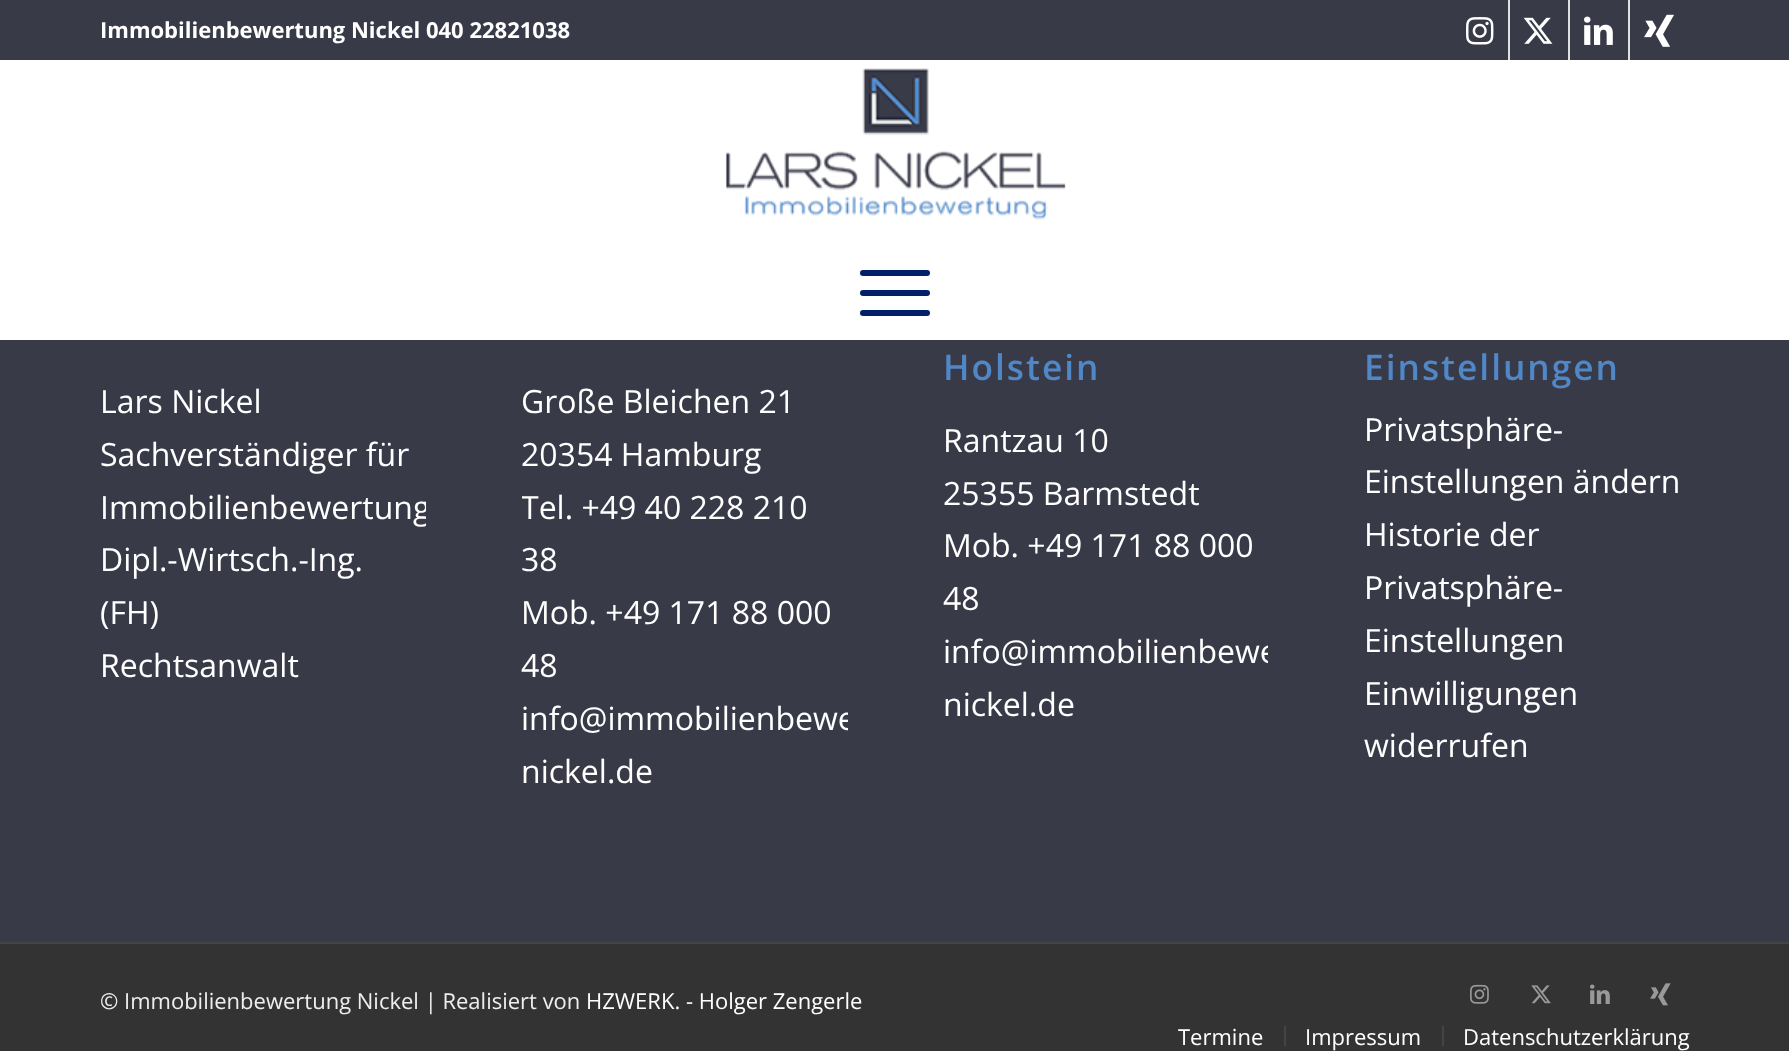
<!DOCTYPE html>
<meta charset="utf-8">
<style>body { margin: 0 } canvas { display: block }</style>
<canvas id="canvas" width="1789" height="1051"></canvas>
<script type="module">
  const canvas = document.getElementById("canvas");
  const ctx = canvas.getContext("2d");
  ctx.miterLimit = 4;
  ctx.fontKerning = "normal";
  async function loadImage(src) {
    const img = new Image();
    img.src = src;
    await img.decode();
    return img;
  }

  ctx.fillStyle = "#393a48";
  ctx.fillRect(0, 0, 1789, 1051);
  ctx.font = "bold 22px Open Sans";
  ctx.fillStyle = "#ffffff";
  ctx.fillText("Immobilienbewertung Nickel 040 22821038", 100, 38);
  ctx.fillStyle = "#e1e1e1";
  ctx.fillRect(1508, 0, 2, 60);
  ctx.drawImage(await loadImage("img1.png"), 1466, 17, 28, 28);
  ctx.fillRect(1568, 0, 2, 60);
  ctx.drawImage(await loadImage("img2.png"), 1523, 17, 30, 27);
  ctx.fillRect(1628, 0, 2, 60);
  ctx.drawImage(await loadImage("img3.png"), 1584, 16, 29, 29);
  ctx.drawImage(await loadImage("img4.png"), 1644, 14, 30, 33);
  ctx.fillStyle = "#ffffff";
  ctx.fillRect(0, 60, 1789, 280);
  ctx.drawImage(await loadImage("img5.png"), 725, 68, 341, 152);
  ctx.fillStyle = "#012069";
  ctx.beginPath();
  ctx.roundRect(860, 290, 70, 6, 3);
  ctx.fill();
  ctx.beginPath();
  ctx.roundRect(860, 270, 70, 6, 3);
  ctx.fill();
  ctx.beginPath();
  ctx.roundRect(860, 310, 70, 6, 3);
  ctx.fill();
  ctx.font = "32px Open Sans";
  ctx.fillStyle = "#ffffff";
  ctx.fillText("Lars Nickel", 100, 413);
  ctx.fillText("Sachverständiger für", 100, 466);
  ctx.save();
  ctx.beginPath();
  ctx.rect(100, 280, 326, 440);
  ctx.clip();
  ctx.fillText("Immobilienbewertung", 100, 519);
  ctx.restore();
  ctx.fillText("Dipl.-Wirtsch.-Ing.", 100, 571);
  ctx.fillText("(FH)", 100, 624);
  ctx.fillText("Rechtsanwalt", 100, 677);
  ctx.fillText("Große Bleichen 21", 521, 413);
  ctx.fillText("20354 Hamburg", 521, 466);
  ctx.save();
  ctx.beginPath();
  ctx.rect(522, 280, 326, 544);
  ctx.clip();
  ctx.fillText("Tel. +49 40 228 210", 521, 519);
  ctx.restore();
  ctx.fillText("38", 521, 571);
  ctx.fillText("Mob. +49 171 88 000", 521, 624);
  ctx.fillText("48", 521, 677);
  ctx.save();
  ctx.beginPath();
  ctx.rect(522, 280, 326, 544);
  ctx.clip();
  ctx.fillText("info@immobilienbewe", 521, 730);
  ctx.restore();
  ctx.fillText("nickel.de", 521, 783);
  ctx.letterSpacing = "2px";
  ctx.font = "600 35.25px Open Sans";
  ctx.fillStyle = "#5087c6";
  ctx.fillText("Holstein", 943, 380);
  ctx.letterSpacing = "0px";
  ctx.font = "32px Open Sans";
  ctx.fillStyle = "#ffffff";
  ctx.fillText("Rantzau 10", 943, 452);
  ctx.fillText("25355 Barmstedt", 943, 505);
  ctx.fillText("Mob. +49 171 88 000", 943, 557);
  ctx.fillText("48", 943, 610);
  ctx.save();
  ctx.beginPath();
  ctx.rect(942, 280, 326, 478);
  ctx.clip();
  ctx.fillText("info@immobilienbewe", 943, 663);
  ctx.restore();
  ctx.fillText("nickel.de", 943, 716);
  ctx.letterSpacing = "2px";
  ctx.font = "600 35.25px Open Sans";
  ctx.fillStyle = "#5087c6";
  ctx.fillText("Einstellungen", 1364, 380);
  ctx.letterSpacing = "0px";
  ctx.font = "32px Open Sans";
  ctx.fillStyle = "#ffffff";
  ctx.fillText("Privatsphäre-", 1364, 441);
  ctx.fillText("Einstellungen ändern", 1364, 493);
  ctx.fillText("Historie der", 1364, 546);
  ctx.fillText("Privatsphäre-", 1364, 599);
  ctx.fillText("Einstellungen", 1364, 652);
  ctx.fillText("Einwilligungen", 1364, 705);
  ctx.fillText("widerrufen", 1364, 757);
  ctx.fillStyle = "#333333";
  ctx.fillRect(0, 944, 1789, 107);
  ctx.fillStyle = "#444444";
  ctx.fillRect(0, 942, 1789, 2);
  ctx.font = "22px Open Sans";
  ctx.fillStyle = "#eeeeee";
  ctx.fillText("© Immobilienbewertung Nickel | Realisiert von", 100, 1009);
  ctx.fillStyle = "#ffffff";
  ctx.fillText("HZWERK. - Holger Zengerle", 586, 1009);
  ctx.drawImage(await loadImage("img6.png"), 1470, 984, 19, 20);
  ctx.drawImage(await loadImage("img7.png"), 1531, 985, 20, 19);
  ctx.drawImage(await loadImage("img8.png"), 1590, 984, 20, 20);
  ctx.drawImage(await loadImage("img9.png"), 1650, 983, 21, 23);
  ctx.fillText("Termine", 1178, 1045);
  ctx.fillStyle = "#444444";
  ctx.fillRect(1284, 1026, 2, 20);
  ctx.fillStyle = "#ffffff";
  ctx.fillText("Impressum", 1305, 1045);
  ctx.fillStyle = "#444444";
  ctx.fillRect(1442, 1026, 2, 20);
  ctx.fillStyle = "#ffffff";
  ctx.fillText("Datenschutzerklärung", 1463, 1045);
</script>
